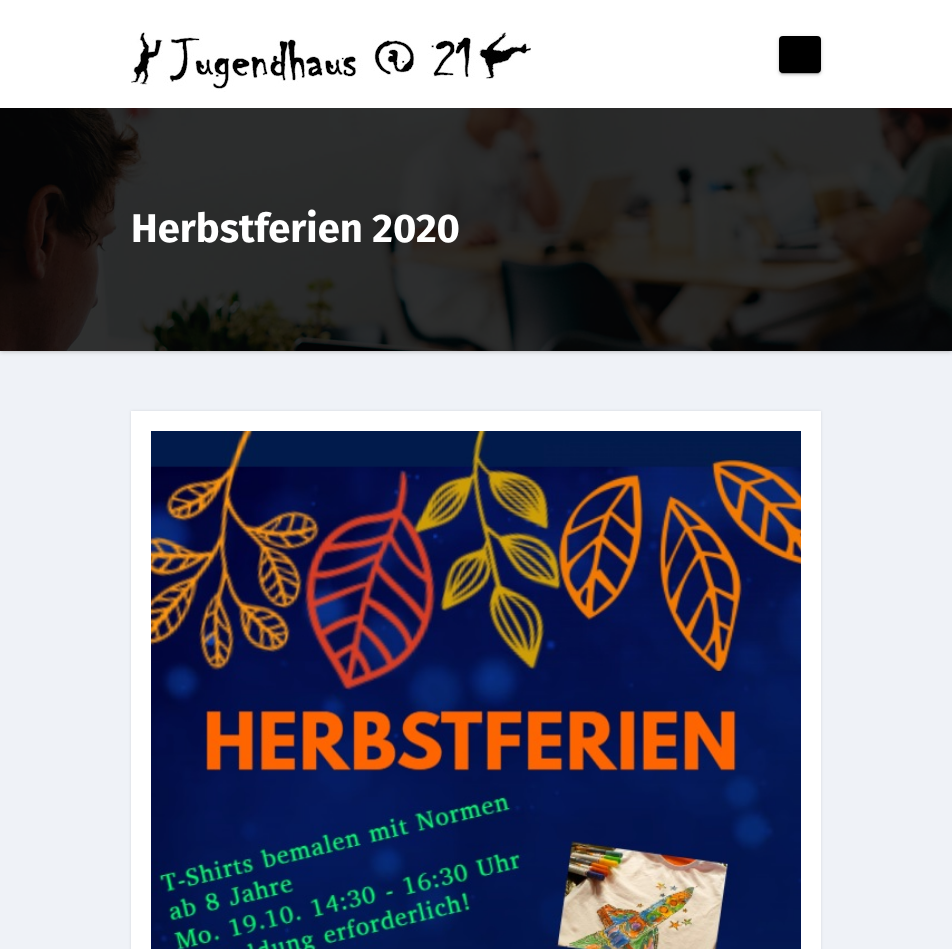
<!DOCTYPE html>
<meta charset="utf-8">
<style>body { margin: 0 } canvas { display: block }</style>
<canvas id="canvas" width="952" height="949"></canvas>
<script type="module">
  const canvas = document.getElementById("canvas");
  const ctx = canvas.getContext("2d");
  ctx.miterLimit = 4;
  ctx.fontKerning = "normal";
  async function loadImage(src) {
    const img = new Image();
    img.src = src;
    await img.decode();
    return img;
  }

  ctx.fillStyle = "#eff2f7";
  ctx.fillRect(0, 0, 952, 949);
  ctx.fillStyle = "#aaaaaa";
  ctx.filter = "blur(2.5px)";
  ctx.beginPath();
  ctx.rect(0, 108, 952, 243);
  ctx.fill();
  ctx.filter = "none";
  ctx.fillStyle = "#ffffff";
  ctx.fillRect(0, 0, 952, 108);
  ctx.drawImage(await loadImage("img1.png"), 131, 32, 400, 60);
  ctx.fillStyle = "rgba(0, 0, 0, 0.12)";
  ctx.filter = "blur(2.5px)";
  ctx.beginPath();
  ctx.roundRect(779, 37, 42, 37, 4);
  ctx.fill();
  ctx.filter = "none";
  ctx.fillStyle = "rgba(0, 0, 0, 0.2)";
  ctx.filter = "blur(0.5px)";
  ctx.beginPath();
  ctx.roundRect(781, 41, 38, 33, 1.5);
  ctx.fill();
  ctx.filter = "none";
  ctx.fillStyle = "rgba(0, 0, 0, 0.14)";
  ctx.filter = "blur(1px)";
  ctx.beginPath();
  ctx.roundRect(779, 38, 42, 37, 4);
  ctx.fill();
  ctx.filter = "none";
  ctx.fillStyle = "#000000";
  ctx.beginPath();
  ctx.roundRect(779, 36, 42, 37, 4);
  ctx.fill();
  ctx.drawImage(await loadImage("img2.png"), 0, 108, 952, 243);
  ctx.font = "bold 40px Fira Sans";
  ctx.fillStyle = "#ffffff";
  ctx.fillText("Herbstferien 2020", 131, 242);
  ctx.fillStyle = "rgba(0, 0, 0, 0.1)";
  ctx.filter = "blur(1.5px)";
  ctx.beginPath();
  ctx.rect(131, 411, 690, 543);
  ctx.fill();
  ctx.filter = "none";
  ctx.fillStyle = "#ffffff";
  ctx.fillRect(131, 411, 690, 538);
  ctx.drawImage(await loadImage("img3.png"), 151, 431, 650, 518);
</script>
